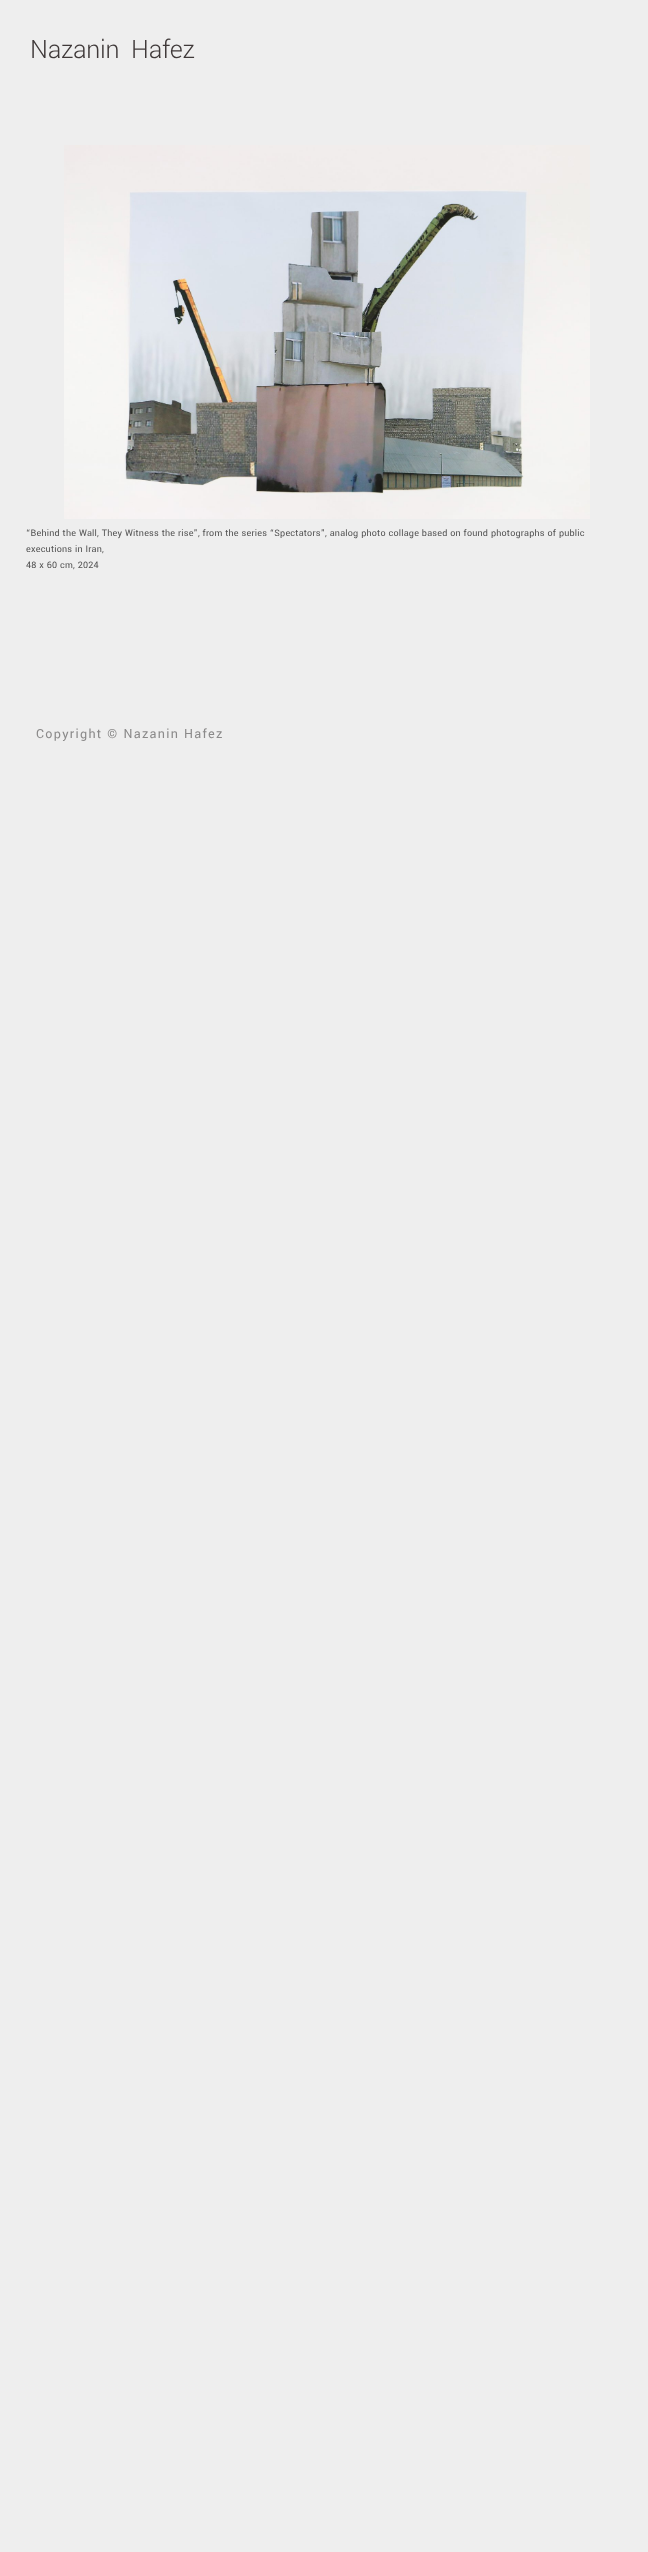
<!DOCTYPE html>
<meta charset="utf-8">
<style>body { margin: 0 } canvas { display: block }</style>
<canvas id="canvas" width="648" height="2552"></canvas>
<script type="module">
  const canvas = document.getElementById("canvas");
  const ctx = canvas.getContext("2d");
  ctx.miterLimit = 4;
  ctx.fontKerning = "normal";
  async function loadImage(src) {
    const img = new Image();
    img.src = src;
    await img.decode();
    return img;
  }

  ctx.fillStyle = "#eeeeee";
  ctx.fillRect(0, 0, 648, 2552);
  ctx.letterSpacing = "-0.25px";
  ctx.wordSpacing = "5px";
  ctx.font = "300 28px Yantramanav";
  ctx.fillStyle = "#3f3939";
  ctx.fillText("Nazanin Hafez", 30, 58);
  ctx.drawImage(await loadImage("img1.png"), 64, 145, 526, 374);
  ctx.letterSpacing = "0.2px";
  ctx.wordSpacing = "0px";
  ctx.font = "10px Yantramanav";
  ctx.fillStyle = "#535353";
  ctx.fillText("“Behind the Wall, They Witness the rise\", from the series “Spectators\", analog photo collage based on found photographs of public", 26, 536);
  ctx.fillText("executions in Iran,", 26, 552);
  ctx.fillText("48 x 60 cm, 2024", 26, 568);
  ctx.letterSpacing = "1.3px";
  ctx.font = "14px Yantramanav";
  ctx.fillStyle = "#8b8a8a";
  ctx.fillText("Copyright © Nazanin Hafez", 36, 738);
</script>
